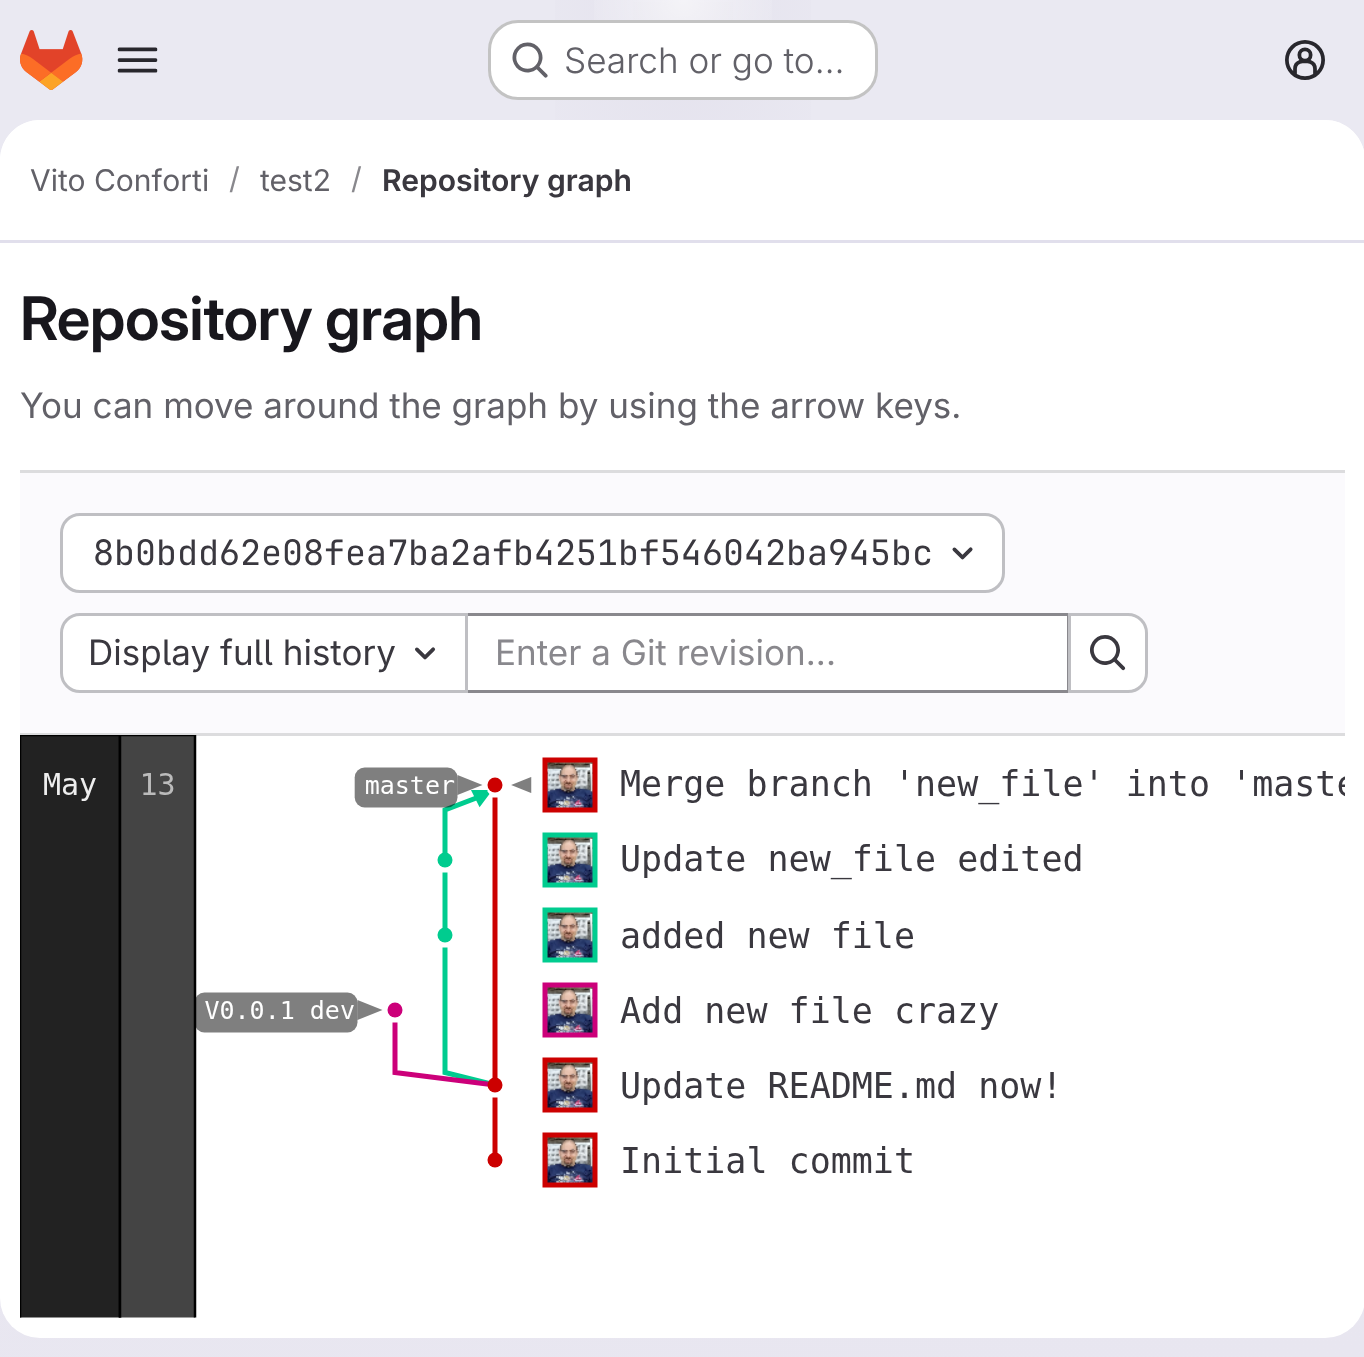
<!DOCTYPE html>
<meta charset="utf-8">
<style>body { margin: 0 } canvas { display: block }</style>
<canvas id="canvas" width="1364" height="1357"></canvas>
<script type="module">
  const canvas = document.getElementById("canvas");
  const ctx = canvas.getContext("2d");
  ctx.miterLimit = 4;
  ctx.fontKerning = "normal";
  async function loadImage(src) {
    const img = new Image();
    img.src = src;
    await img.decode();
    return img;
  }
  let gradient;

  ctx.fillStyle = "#ffffff";
  ctx.fillRect(0, 0, 1364, 1357);
  gradient = ctx.createLinearGradient(819, 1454, 546, -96);
  gradient.addColorStop(0, "#e8e6f0");
  gradient.addColorStop(0.7, "#eae9f2");
  ctx.fillStyle = gradient;
  ctx.fillRect(0, 0, 1364, 1357);
  gradient = ctx.createRadialGradient(683, 0, 0, 683, 0, 683);
  gradient.addColorStop(0, "#e4e2ed");
  gradient.addColorStop(0.26, "rgba(228, 226, 237, 0)");
  ctx.fillStyle = gradient;
  ctx.beginPath();
  ctx.rect(555, 0, 256, 120);
  ctx.save();
  ctx.clip();
  ctx.scale(1, 1358 / 683);
  ctx.fillRect(0, 0, 1364, 683);
  ctx.restore();
  gradient = ctx.createRadialGradient(683, 0, 0, 683, 0, 683);
  gradient.addColorStop(0, "#e4e2ec");
  gradient.addColorStop(0.18, "rgba(228, 226, 236, 0)");
  ctx.fillStyle = gradient;
  ctx.beginPath();
  ctx.rect(633, 2, 100, 94);
  ctx.save();
  ctx.clip();
  ctx.scale(1, 1358 / 683);
  ctx.fillRect(0, 0, 1364, 683);
  ctx.restore();
  gradient = ctx.createRadialGradient(683, 0, 0, 683, 0, 1519);
  gradient.addColorStop(0, "rgba(255, 255, 255, 0.6)");
  gradient.addColorStop(0.07, "rgba(255, 255, 255, 0)");
  ctx.fillStyle = gradient;
  ctx.fillRect(594, 0, 178, 91);
  ctx.drawImage(await loadImage("img1.png"), 20, 30, 63, 60);
  ctx.drawImage(await loadImage("img2.png"), 117, 47, 41, 26);
  ctx.fillStyle = "#ffffff";
  ctx.beginPath();
  ctx.roundRect(488, 20, 390, 80, 30);
  ctx.fill();
  ctx.beginPath();
  ctx.roundRect(489.5, 21.5, 387, 77, 28.5);
  ctx.strokeStyle = "rgba(5, 5, 6, 0.24)";
  ctx.lineWidth = 3;
  ctx.stroke();
  ctx.drawImage(await loadImage("img3.png"), 512, 42, 36, 36);
  ctx.font = "300 35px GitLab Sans";
  ctx.fillStyle = "#626168";
  ctx.fillText("Search or go to…", 564, 73);
  ctx.drawImage(await loadImage("img4.png"), 1285, 40, 40, 40);
  ctx.fillStyle = "#ffffff";
  ctx.beginPath();
  ctx.roundRect(0, 120, 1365, 1218, 40);
  ctx.fill();
  ctx.beginPath();
  ctx.moveTo(40, 120);
  ctx.lineTo(1325, 120);
  ctx.bezierCurveTo(1347, 120, 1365, 138, 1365, 160);
  ctx.lineTo(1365, 243);
  ctx.lineTo(0, 243);
  ctx.lineTo(0, 160);
  ctx.bezierCurveTo(0, 138, 18, 120, 40, 120);
  ctx.closePath();
  ctx.fill();
  ctx.fillStyle = "#e1dfec";
  ctx.fillRect(0, 240, 1364, 3);
  ctx.font = "30px GitLab Sans";
  ctx.fillStyle = "#626168";
  ctx.fillText("Vito Conforti", 30, 191);
  ctx.fillStyle = "#89888d";
  ctx.fillText("/", 229, 189);
  ctx.fillStyle = "#626168";
  ctx.fillText("test2", 260, 191);
  ctx.fillStyle = "#89888d";
  ctx.fillText("/", 351, 189);
  ctx.font = "600 30px 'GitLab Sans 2'";
  ctx.fillStyle = "#3a383f";
  ctx.fillText("Repository graph", 382, 191);
  ctx.letterSpacing = "-0.6px";
  ctx.font = "600 60px GitLab Sans";
  ctx.fillStyle = "#18171d";
  ctx.fillText("Repository graph", 20, 340);
  ctx.letterSpacing = "0px";
  ctx.font = "35px GitLab Sans";
  ctx.fillStyle = "#626168";
  ctx.fillText("You can move around the graph by using the arrow keys.", 20, 418);
  ctx.fillStyle = "#fbfafd";
  ctx.fillRect(20, 473, 1325, 260);
  ctx.fillStyle = "#dcdcde";
  ctx.fillRect(20, 470, 1325, 3);
  ctx.fillRect(20, 733, 1325, 3);
  ctx.fillStyle = "#ffffff";
  ctx.beginPath();
  ctx.roundRect(61.5, 514.5, 942, 77, 18.5);
  ctx.fill();
  ctx.strokeStyle = "#bfbfc3";
  ctx.stroke();
  ctx.font = "35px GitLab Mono";
  ctx.fillStyle = "#3a383f";
  ctx.fillText("8b0bdd62e08fea7ba2afb4251bf546042ba945bc", 93, 565);
  ctx.drawImage(await loadImage("img5.png"), 952, 547, 21, 13);
  ctx.fillStyle = "#ffffff";
  ctx.beginPath();
  ctx.rect(466.5, 614.5, 602, 77);
  ctx.fill();
  ctx.strokeStyle = "#89888d";
  ctx.stroke();
  ctx.beginPath();
  ctx.roundRect(61.5, 614.5, 405, 77, [18.5, 0, 0, 18.5]);
  ctx.fill();
  ctx.strokeStyle = "#bfbfc3";
  ctx.stroke();
  ctx.font = "35px GitLab Sans";
  ctx.fillStyle = "#3a383f";
  ctx.fillText("Display full history", 88, 665);
  ctx.drawImage(await loadImage("img6.png"), 415, 647, 21, 13);
  ctx.fillStyle = "#89888d";
  ctx.fillText("Enter a Git revision...", 495, 665);
  ctx.fillStyle = "#ffffff";
  ctx.beginPath();
  ctx.roundRect(1069.5, 614.5, 77, 77, [0, 18.5, 18.5, 0]);
  ctx.fill();
  ctx.stroke();
  ctx.drawImage(await loadImage("img7.png"), 1090, 635, 36, 36);
  ctx.drawImage(await loadImage("img8.png"), 20, 735, 1325, 583);
</script>
